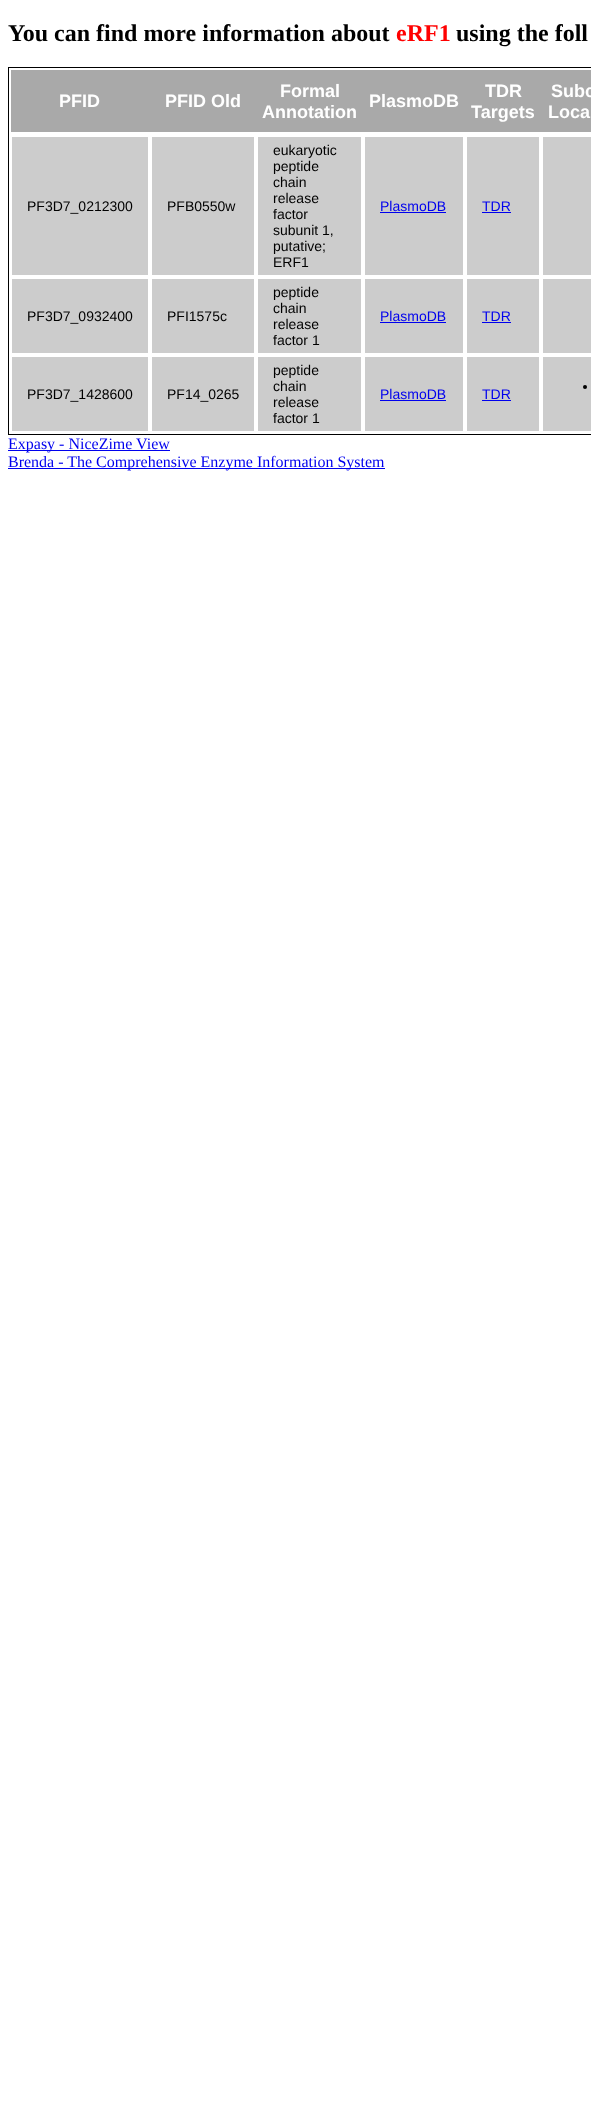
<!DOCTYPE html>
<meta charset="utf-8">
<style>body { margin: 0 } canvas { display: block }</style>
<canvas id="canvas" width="591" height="2126"></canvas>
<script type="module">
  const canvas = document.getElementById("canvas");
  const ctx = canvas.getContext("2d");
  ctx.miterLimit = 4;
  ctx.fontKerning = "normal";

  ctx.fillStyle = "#ffffff";
  ctx.fillRect(0, 0, 591, 2126);
  ctx.font = "bold 24px Liberation Serif";
  ctx.fillStyle = "#000000";
  ctx.fillText("You can find more information about", 8, 41);
  ctx.fillStyle = "#ff0000";
  ctx.fillText("eRF1", 396, 41);
  ctx.fillStyle = "#000000";
  ctx.fillText("using the foll", 456, 41);
  ctx.strokeStyle = "#000000";
  ctx.strokeRect(8.5, 67.5, 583, 367);
  ctx.fillStyle = "#a9a9a9";
  ctx.fillRect(11, 70, 580, 62);
  ctx.font = "bold 18px Liberation Sans";
  ctx.fillStyle = "#ffffff";
  ctx.fillText("PFID", 59, 107);
  ctx.fillText("PFID Old", 165, 107);
  ctx.fillText("Formal", 280, 97);
  ctx.fillText("Annotation", 262, 118);
  ctx.fillText("PlasmoDB", 369, 107);
  ctx.fillText("TDR", 485, 97);
  ctx.fillText("Targets", 471, 118);
  ctx.fillText("Subc", 551, 97);
  ctx.fillText("Loca", 548, 118);
  ctx.fillStyle = "#cccccc";
  ctx.fillRect(12, 137, 136, 138);
  ctx.font = "14px Liberation Sans";
  ctx.fillStyle = "#000000";
  ctx.fillText("PF3D7_0212300", 27, 211);
  ctx.fillStyle = "#cccccc";
  ctx.fillRect(152, 137, 102, 138);
  ctx.fillStyle = "#000000";
  ctx.fillText("PFB0550w", 167, 211);
  ctx.fillStyle = "#cccccc";
  ctx.fillRect(258, 137, 103, 138);
  ctx.fillStyle = "#000000";
  ctx.fillText("eukaryotic", 273, 155);
  ctx.fillText("peptide", 273, 171);
  ctx.fillText("chain", 273, 187);
  ctx.fillText("release", 273, 203);
  ctx.fillText("factor", 273, 219);
  ctx.fillText("subunit 1,", 273, 235);
  ctx.fillText("putative;", 273, 251);
  ctx.fillText("ERF1", 273, 267);
  ctx.fillStyle = "#cccccc";
  ctx.fillRect(365, 137, 98, 138);
  ctx.fillStyle = "#0000ee";
  ctx.fillText("PlasmoDB", 380, 211);
  ctx.fillRect(380, 212, 66, 1);
  ctx.fillStyle = "#cccccc";
  ctx.fillRect(467, 137, 72, 138);
  ctx.fillStyle = "#0000ee";
  ctx.fillText("TDR", 482, 211);
  ctx.fillRect(482, 212, 29, 1);
  ctx.fillStyle = "#cccccc";
  ctx.fillRect(543, 137, 48, 138);
  ctx.fillRect(12, 279, 136, 74);
  ctx.fillStyle = "#000000";
  ctx.fillText("PF3D7_0932400", 27, 321);
  ctx.fillStyle = "#cccccc";
  ctx.fillRect(152, 279, 102, 74);
  ctx.fillStyle = "#000000";
  ctx.fillText("PFI1575c", 167, 321);
  ctx.fillStyle = "#cccccc";
  ctx.fillRect(258, 279, 103, 74);
  ctx.fillStyle = "#000000";
  ctx.fillText("peptide", 273, 297);
  ctx.fillText("chain", 273, 313);
  ctx.fillText("release", 273, 329);
  ctx.fillText("factor 1", 273, 345);
  ctx.fillStyle = "#cccccc";
  ctx.fillRect(365, 279, 98, 74);
  ctx.fillStyle = "#0000ee";
  ctx.fillText("PlasmoDB", 380, 321);
  ctx.fillRect(380, 322, 66, 1);
  ctx.fillStyle = "#cccccc";
  ctx.fillRect(467, 279, 72, 74);
  ctx.fillStyle = "#0000ee";
  ctx.fillText("TDR", 482, 321);
  ctx.fillRect(482, 322, 29, 1);
  ctx.fillStyle = "#cccccc";
  ctx.fillRect(543, 279, 48, 74);
  ctx.fillRect(12, 357, 136, 74);
  ctx.fillStyle = "#000000";
  ctx.fillText("PF3D7_1428600", 27, 399);
  ctx.fillStyle = "#cccccc";
  ctx.fillRect(152, 357, 102, 74);
  ctx.fillStyle = "#000000";
  ctx.fillText("PF14_0265", 167, 399);
  ctx.fillStyle = "#cccccc";
  ctx.fillRect(258, 357, 103, 74);
  ctx.fillStyle = "#000000";
  ctx.fillText("peptide", 273, 375);
  ctx.fillText("chain", 273, 391);
  ctx.fillText("release", 273, 407);
  ctx.fillText("factor 1", 273, 423);
  ctx.fillStyle = "#cccccc";
  ctx.fillRect(365, 357, 98, 74);
  ctx.fillStyle = "#0000ee";
  ctx.fillText("PlasmoDB", 380, 399);
  ctx.fillRect(380, 400, 66, 1);
  ctx.fillStyle = "#cccccc";
  ctx.fillRect(467, 357, 72, 74);
  ctx.fillStyle = "#0000ee";
  ctx.fillText("TDR", 482, 399);
  ctx.fillRect(482, 400, 29, 1);
  ctx.fillStyle = "#cccccc";
  ctx.fillRect(543, 357, 48, 74);
  ctx.fillStyle = "#000000";
  ctx.beginPath();
  ctx.arc(585, 387, 2, 0, Math.PI * 2);
  ctx.fill();
  ctx.fillStyle = "#0000ee";
  ctx.fillRect(8, 450, 162, 1);
  ctx.font = "16px Liberation Serif";
  ctx.fillText("Expasy - NiceZime View", 8, 449);
  ctx.fillRect(8, 468, 377, 1);
  ctx.fillText("Brenda - The Comprehensive Enzyme Information System", 8, 467);
</script>
